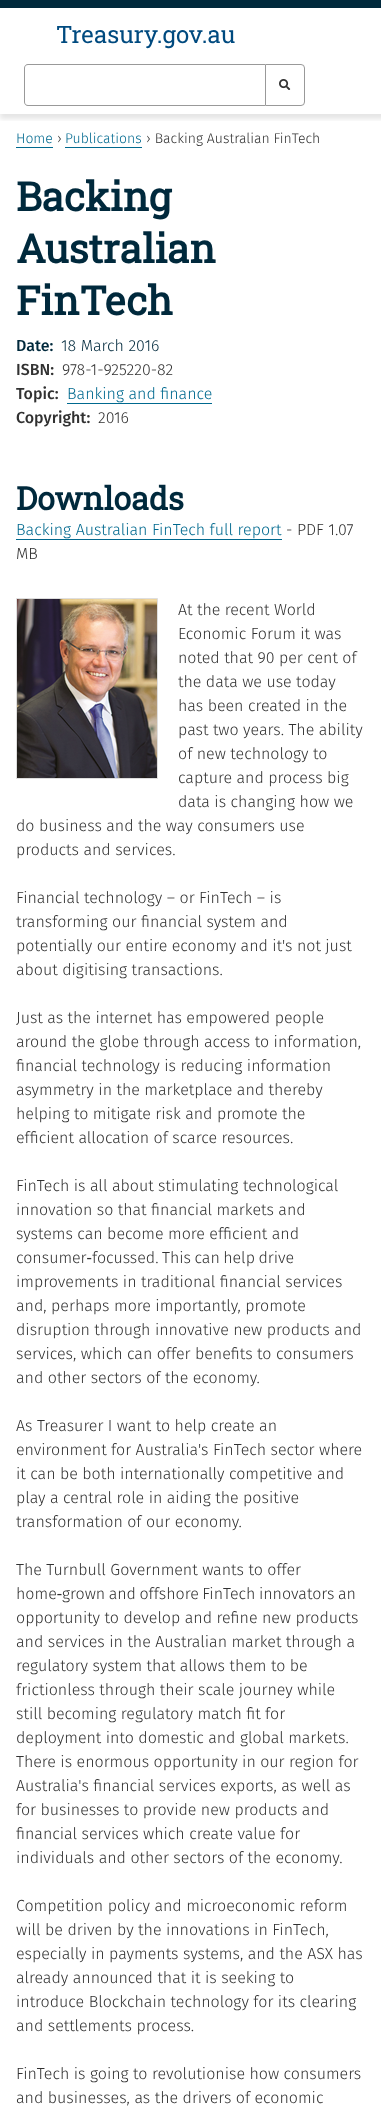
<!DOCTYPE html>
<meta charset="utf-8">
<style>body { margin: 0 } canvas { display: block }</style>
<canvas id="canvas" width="381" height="2122"></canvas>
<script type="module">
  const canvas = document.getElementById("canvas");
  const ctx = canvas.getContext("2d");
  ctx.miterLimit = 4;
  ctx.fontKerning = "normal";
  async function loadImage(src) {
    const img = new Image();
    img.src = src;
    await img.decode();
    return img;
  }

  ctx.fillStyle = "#ffffff";
  ctx.fillRect(0, 0, 381, 2122);
  ctx.save();
  ctx.beginPath();
  ctx.rect(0, 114, 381, 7);
  ctx.clip();
  ctx.fillStyle = "rgba(0, 0, 0, 0.1)";
  ctx.filter = "blur(2.5px)";
  ctx.beginPath();
  ctx.rect(0, 5, 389, 114);
  ctx.fill();
  ctx.filter = "none";
  ctx.restore();
  ctx.fillStyle = "#00293c";
  ctx.fillRect(0, 0, 381, 8);
  ctx.font = "24px Roboto Slab";
  ctx.fillStyle = "#004a7f";
  ctx.fillText("Treasury.gov.au", 56, 43);
  ctx.fillStyle = "#999999";
  ctx.beginPath();
  ctx.moveTo(28, 64);
  ctx.lineTo(265, 64);
  ctx.lineTo(265, 106);
  ctx.lineTo(28, 106);
  ctx.bezierCurveTo(26, 106, 24, 104, 24, 102);
  ctx.lineTo(24, 68);
  ctx.bezierCurveTo(24, 66, 26, 64, 28, 64);
  ctx.closePath();
  ctx.moveTo(28, 65);
  ctx.lineTo(265, 65);
  ctx.lineTo(265, 105);
  ctx.lineTo(28, 105);
  ctx.bezierCurveTo(26, 105, 25, 104, 25, 102);
  ctx.lineTo(25, 68);
  ctx.bezierCurveTo(25, 66, 26, 65, 28, 65);
  ctx.closePath();
  ctx.fill("evenodd");
  ctx.drawImage(await loadImage("img1.png"), 279, 79, 12, 11);
  ctx.beginPath();
  ctx.roundRect(265.5, 64.5, 39, 41, [0, 3.5, 3.5, 0]);
  ctx.strokeStyle = "#999999";
  ctx.stroke();
  ctx.font = "300 14px Fira Sans";
  ctx.fillStyle = "#00698f";
  ctx.fillText("Home", 16, 143);
  ctx.fillRect(16, 147, 37, 1);
  ctx.fillStyle = "#313131";
  ctx.fillText("›", 57, 143);
  ctx.fillStyle = "#00698f";
  ctx.fillText("Publications", 65, 143);
  ctx.fillRect(65, 147, 77, 1);
  ctx.fillStyle = "#313131";
  ctx.fillText("› Backing Australian FinTech", 146, 143);
  ctx.font = "bold 40px Roboto Slab";
  ctx.fillStyle = "#00293c";
  ctx.fillText("Backing", 16, 211);
  ctx.fillText("Australian", 16, 263);
  ctx.fillText("FinTech", 16, 315);
  ctx.font = "500 16px Fira Sans";
  ctx.fillText("Date:", 16, 351);
  ctx.font = "300 16px Fira Sans";
  ctx.fillText("18 March 2016", 61, 351);
  ctx.font = "500 16px Fira Sans";
  ctx.fillStyle = "#313131";
  ctx.fillText("ISBN:", 16, 375);
  ctx.font = "300 16px Fira Sans";
  ctx.fillText("978-1-925220-82", 62, 375);
  ctx.font = "500 16px Fira Sans";
  ctx.fillText("Topic:", 16, 399);
  ctx.font = "300 16px Fira Sans";
  ctx.fillStyle = "#00698f";
  ctx.fillText("Banking and finance", 67, 399);
  ctx.fillRect(67, 403, 145, 1);
  ctx.font = "500 16px Fira Sans";
  ctx.fillStyle = "#313131";
  ctx.fillText("Copyright:", 16, 423);
  ctx.font = "300 16px Fira Sans";
  ctx.fillText("2016", 98, 423);
  ctx.font = "bold 32px Roboto Slab";
  ctx.fillStyle = "#00293c";
  ctx.fillText("Downloads", 16, 510);
  ctx.font = "300 16px Fira Sans";
  ctx.fillStyle = "#00698f";
  ctx.fillText("Backing Australian FinTech full report", 16, 535);
  ctx.fillRect(16, 539, 266, 1);
  ctx.fillStyle = "#313131";
  ctx.fillText("- PDF 1.07", 286, 535);
  ctx.fillText("MB", 16, 559);
  ctx.drawImage(await loadImage("img2.png"), 16, 598, 142, 181);
  ctx.fillText("At the recent World", 178, 615);
  ctx.fillText("Economic Forum it was", 178, 639);
  ctx.fillText("noted that 90 per cent of", 178, 663);
  ctx.fillText("the data we use today", 178, 687);
  ctx.fillText("has been created in the", 178, 711);
  ctx.fillText("past two years. The ability", 178, 735);
  ctx.fillText("of new technology to", 178, 759);
  ctx.fillText("capture and process big", 178, 783);
  ctx.fillText("data is changing how we", 178, 807);
  ctx.fillText("do business and the way consumers use", 16, 831);
  ctx.fillText("products and services.", 16, 855);
  ctx.fillText("Financial technology – or FinTech – is", 16, 903);
  ctx.fillText("transforming our financial system and", 16, 927);
  ctx.fillText("potentially our entire economy and it's not just", 16, 951);
  ctx.fillText("about digitising transactions.", 16, 975);
  ctx.fillText("Just as the internet has empowered people", 16, 1023);
  ctx.fillText("around the globe through access to information,", 16, 1047);
  ctx.fillText("financial technology is reducing information", 16, 1071);
  ctx.fillText("asymmetry in the marketplace and thereby", 16, 1095);
  ctx.fillText("helping to mitigate risk and promote the", 16, 1119);
  ctx.fillText("efficient allocation of scarce resources.", 16, 1143);
  ctx.fillText("FinTech is all about stimulating technological", 16, 1191);
  ctx.fillText("innovation so that financial markets and", 16, 1215);
  ctx.fillText("systems can become more efficient and", 16, 1239);
  ctx.wordSpacing = "-1px";
  ctx.fillText("consumer‑focussed. This can help drive", 16, 1263);
  ctx.wordSpacing = "0px";
  ctx.fillText("improvements in traditional financial services", 16, 1287);
  ctx.fillText("and, perhaps more importantly, promote", 16, 1311);
  ctx.fillText("disruption through innovative new products and", 16, 1335);
  ctx.fillText("services, which can offer benefits to consumers", 16, 1359);
  ctx.fillText("and other sectors of the economy.", 16, 1383);
  ctx.fillText("As Treasurer I want to help create an", 16, 1431);
  ctx.fillText("environment for Australia's FinTech sector where", 16, 1455);
  ctx.fillText("it can be both internationally competitive and", 16, 1479);
  ctx.fillText("play a central role in aiding the positive", 16, 1503);
  ctx.fillText("transformation of our economy.", 16, 1527);
  ctx.fillText("The Turnbull Government wants to offer", 16, 1575);
  ctx.wordSpacing = "-1px";
  ctx.fillText("home‑grown and offshore FinTech innovators an", 16, 1599);
  ctx.wordSpacing = "0px";
  ctx.fillText("opportunity to develop and refine new products", 16, 1623);
  ctx.fillText("and services in the Australian market through a", 16, 1647);
  ctx.fillText("regulatory system that allows them to be", 16, 1671);
  ctx.fillText("frictionless through their scale journey while", 16, 1695);
  ctx.fillText("still becoming regulatory match fit for", 16, 1719);
  ctx.fillText("deployment into domestic and global markets.", 16, 1743);
  ctx.fillText("There is enormous opportunity in our region for", 16, 1767);
  ctx.fillText("Australia's financial services exports, as well as", 16, 1791);
  ctx.fillText("for businesses to provide new products and", 16, 1815);
  ctx.fillText("financial services which create value for", 16, 1839);
  ctx.fillText("individuals and other sectors of the economy.", 16, 1863);
  ctx.fillText("Competition policy and microeconomic reform", 16, 1911);
  ctx.fillText("will be driven by the innovations in FinTech,", 16, 1935);
  ctx.fillText("especially in payments systems, and the ASX has", 16, 1959);
  ctx.fillText("already announced that it is seeking to", 16, 1983);
  ctx.fillText("introduce Blockchain technology for its clearing", 16, 2007);
  ctx.fillText("and settlements process.", 16, 2031);
  ctx.fillText("FinTech is going to revolutionise how consumers", 16, 2079);
  ctx.fillText("and businesses, as the drivers of economic", 16, 2103);
</script>
